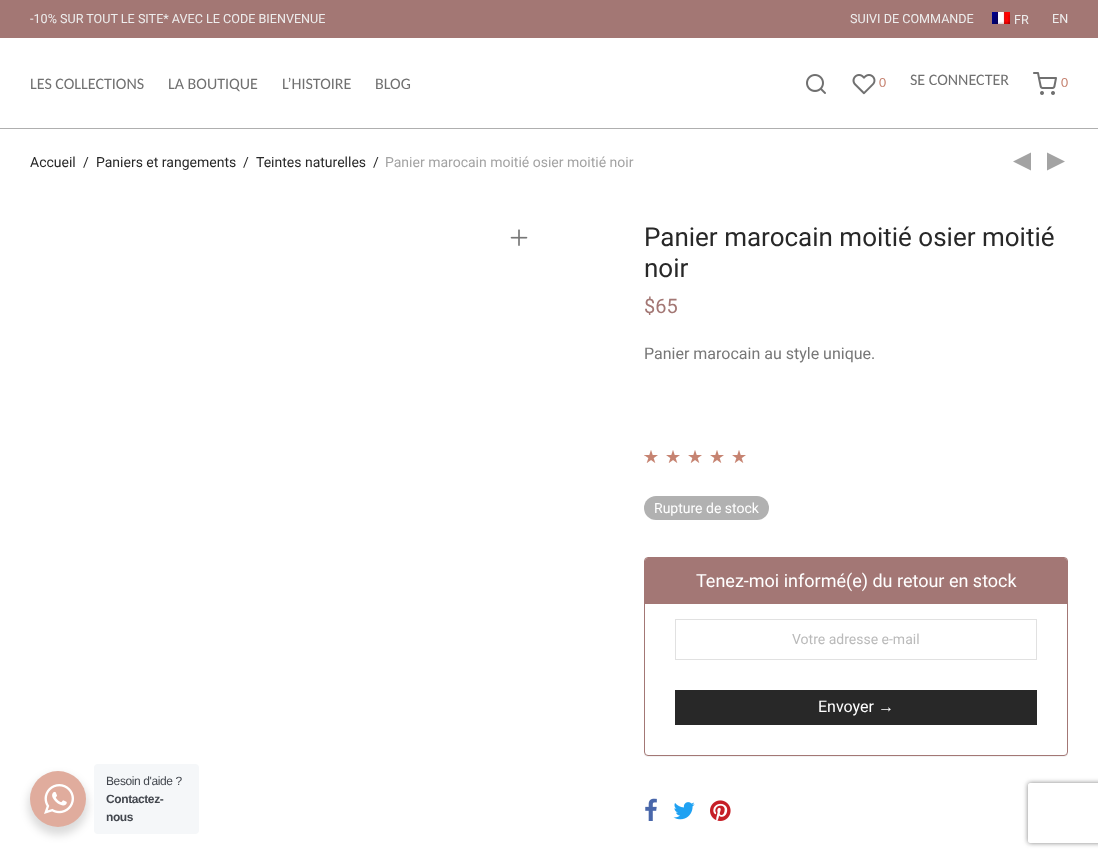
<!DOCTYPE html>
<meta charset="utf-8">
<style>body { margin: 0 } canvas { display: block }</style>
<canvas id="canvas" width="1098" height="857"></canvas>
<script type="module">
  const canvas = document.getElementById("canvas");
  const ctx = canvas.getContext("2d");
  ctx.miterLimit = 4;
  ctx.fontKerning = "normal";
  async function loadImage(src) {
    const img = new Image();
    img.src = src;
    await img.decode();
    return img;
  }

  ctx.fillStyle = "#ffffff";
  ctx.fillRect(0, 0, 1098, 857);
  ctx.fillStyle = "#a37774";
  ctx.fillRect(0, 0, 1098, 38);
  ctx.font = "12.6px Roboto";
  ctx.fillStyle = "#eeeeee";
  ctx.fillText("-10% SUR TOUT LE SITE* AVEC LE CODE BIENVENUE", 30, 23);
  ctx.fillText("SUIVI DE COMMANDE", 850, 23);
  ctx.drawImage(await loadImage("img1.png"), 992, 12, 18, 12);
  ctx.fillText("FR", 1014, 24);
  ctx.fillText("EN", 1052, 23);
  ctx.fillStyle = "#afafaf";
  ctx.fillRect(0, 128, 1098, 1);
  ctx.font = "16px Carlito";
  ctx.fillStyle = "#707070";
  ctx.fillText("LES COLLECTIONS", 30, 89);
  ctx.fillText("LA BOUTIQUE", 168, 89);
  ctx.fillText("L’HISTOIRE", 282, 89);
  ctx.fillText("BLOG", 375, 89);
  ctx.drawImage(await loadImage("img2.png"), 806, 74, 20, 20);
  ctx.drawImage(await loadImage("img3.png"), 852, 74, 24, 21);
  ctx.font = "14px Carlito";
  ctx.fillStyle = "#c68371";
  ctx.fillText("0", 879, 87);
  ctx.font = "16px Carlito";
  ctx.fillStyle = "#707070";
  ctx.fillText("SE CONNECTER", 910, 85);
  ctx.drawImage(await loadImage("img4.png"), 1033, 72, 24, 23);
  ctx.font = "14px Carlito";
  ctx.fillStyle = "#c68371";
  ctx.fillText("0", 1061, 87);
  ctx.font = "14px Roboto";
  ctx.fillStyle = "#282828";
  ctx.fillText("Accueil", 30, 167);
  ctx.fillText("/", 83, 167);
  ctx.fillText("Paniers et rangements", 96, 167);
  ctx.fillText("/", 243, 167);
  ctx.fillText("Teintes naturelles", 256, 167);
  ctx.fillText("/", 373, 167);
  ctx.fillStyle = "#a3a3a3";
  ctx.fillText("Panier marocain moitié osier moitié noir", 385, 167);
  ctx.beginPath();
  ctx.moveTo(1031, 152.5);
  ctx.lineTo(1031, 170.5);
  ctx.lineTo(1013, 161.5);
  ctx.closePath();
  ctx.moveTo(1047, 152.5);
  ctx.lineTo(1047, 170.5);
  ctx.lineTo(1065, 161.5);
  ctx.closePath();
  ctx.fill();
  ctx.drawImage(await loadImage("img5.png"), 510, 229, 18, 17);
  ctx.font = "26px Roboto";
  ctx.fillStyle = "#282828";
  ctx.fillText("Panier marocain moitié osier moitié", 644, 246);
  ctx.fillText("noir", 644, 277);
  ctx.font = "20px Roboto";
  ctx.fillStyle = "#a37774";
  ctx.fillText("$65", 644, 313);
  ctx.font = "16px Roboto";
  ctx.fillStyle = "#777777";
  ctx.fillText("Panier marocain au style unique.", 644, 359);
  ctx.fillStyle = "#dfbab0";
  ctx.fillRect(644, 455, 1, 1);
  ctx.drawImage(await loadImage("img6.png"), 645, 450, 101, 13);
  ctx.fillStyle = "#b1b1b1";
  ctx.beginPath();
  ctx.roundRect(644, 496, 125, 24, 12);
  ctx.fill();
  ctx.font = "14px Roboto";
  ctx.fillStyle = "#ffffff";
  ctx.fillText("Rupture de stock", 654, 513);
  ctx.save();
  ctx.beginPath();
  ctx.moveTo(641, 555);
  ctx.lineTo(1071, 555);
  ctx.lineTo(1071, 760);
  ctx.lineTo(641, 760);
  ctx.closePath();
  ctx.moveTo(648, 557);
  ctx.lineTo(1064, 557);
  ctx.bezierCurveTo(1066, 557, 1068, 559, 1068, 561);
  ctx.lineTo(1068, 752);
  ctx.bezierCurveTo(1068, 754, 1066, 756, 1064, 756);
  ctx.lineTo(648, 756);
  ctx.bezierCurveTo(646, 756, 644, 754, 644, 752);
  ctx.lineTo(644, 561);
  ctx.bezierCurveTo(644, 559, 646, 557, 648, 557);
  ctx.closePath();
  ctx.clip("evenodd");
  ctx.fillStyle = "rgba(0, 0, 0, 0.05)";
  ctx.filter = "blur(0.5px)";
  ctx.beginPath();
  ctx.roundRect(644, 558, 424, 199, 4);
  ctx.fill();
  ctx.filter = "none";
  ctx.restore();
  ctx.beginPath();
  ctx.roundRect(644.5, 557.5, 423, 198, 3.5);
  ctx.strokeStyle = "#a37775";
  ctx.stroke();
  ctx.fillStyle = "#a37775";
  ctx.beginPath();
  ctx.roundRect(645, 558, 422, 46, [3, 3, 0, 0]);
  ctx.fill();
  ctx.font = "18px Roboto";
  ctx.fillStyle = "#ffffff";
  ctx.fillText("Tenez-moi informé(e) du retour en stock", 696, 587);
  ctx.strokeStyle = "#e1e1e1";
  ctx.strokeRect(675.5, 619.5, 361, 40);
  ctx.font = "14px Roboto";
  ctx.fillStyle = "#bababa";
  ctx.fillText("Votre adresse e-mail", 792, 644);
  ctx.fillStyle = "#282828";
  ctx.fillRect(675, 690, 362, 35);
  ctx.font = "16px Roboto";
  ctx.fillStyle = "#ffffff";
  ctx.fillText("Envoyer", 818, 712);
  ctx.font = "16px Liberation Sans";
  ctx.fillText("→", 878, 712);
  ctx.drawImage(await loadImage("img7.png"), 645, 798, 12, 23);
  ctx.drawImage(await loadImage("img8.png"), 673, 802, 22, 18);
  ctx.drawImage(await loadImage("img9.png"), 710, 800, 21, 21);
  ctx.fillStyle = "rgba(0, 0, 0, 0.14)";
  ctx.filter = "blur(4px)";
  ctx.beginPath();
  ctx.roundRect(28, 775, 60, 60, 30);
  ctx.fill();
  ctx.filter = "none";
  ctx.fillStyle = "#e0ac9d";
  ctx.beginPath();
  ctx.arc(58, 799, 28, 0, Math.PI * 2);
  ctx.fill();
  ctx.drawImage(await loadImage("img10.png"), 44, 784, 30, 30);
  ctx.fillStyle = "#f5f7f9";
  ctx.beginPath();
  ctx.roundRect(94, 764, 105, 70, 4);
  ctx.fill();
  ctx.letterSpacing = "-0.4px";
  ctx.font = "12px Liberation Sans";
  ctx.fillStyle = "#43474e";
  ctx.fillText("Besoin d'aide ?", 106, 785);
  ctx.font = "bold 12px Liberation Sans";
  ctx.fillText("Contactez-", 106, 803);
  ctx.fillText("nous", 106, 821);
  ctx.save();
  ctx.beginPath();
  ctx.moveTo(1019, 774);
  ctx.lineTo(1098, 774);
  ctx.lineTo(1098, 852);
  ctx.lineTo(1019, 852);
  ctx.closePath();
  ctx.moveTo(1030, 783);
  ctx.lineTo(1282, 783);
  ctx.bezierCurveTo(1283, 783, 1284, 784, 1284, 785);
  ctx.lineTo(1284, 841);
  ctx.bezierCurveTo(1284, 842, 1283, 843, 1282, 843);
  ctx.lineTo(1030, 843);
  ctx.bezierCurveTo(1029, 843, 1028, 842, 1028, 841);
  ctx.lineTo(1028, 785);
  ctx.bezierCurveTo(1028, 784, 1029, 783, 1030, 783);
  ctx.closePath();
  ctx.clip("evenodd");
  ctx.fillStyle = "#808080";
  ctx.filter = "blur(2.5px)";
  ctx.beginPath();
  ctx.roundRect(1028, 783, 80, 60, 2);
  ctx.fill();
  ctx.filter = "none";
  ctx.restore();
</script>
